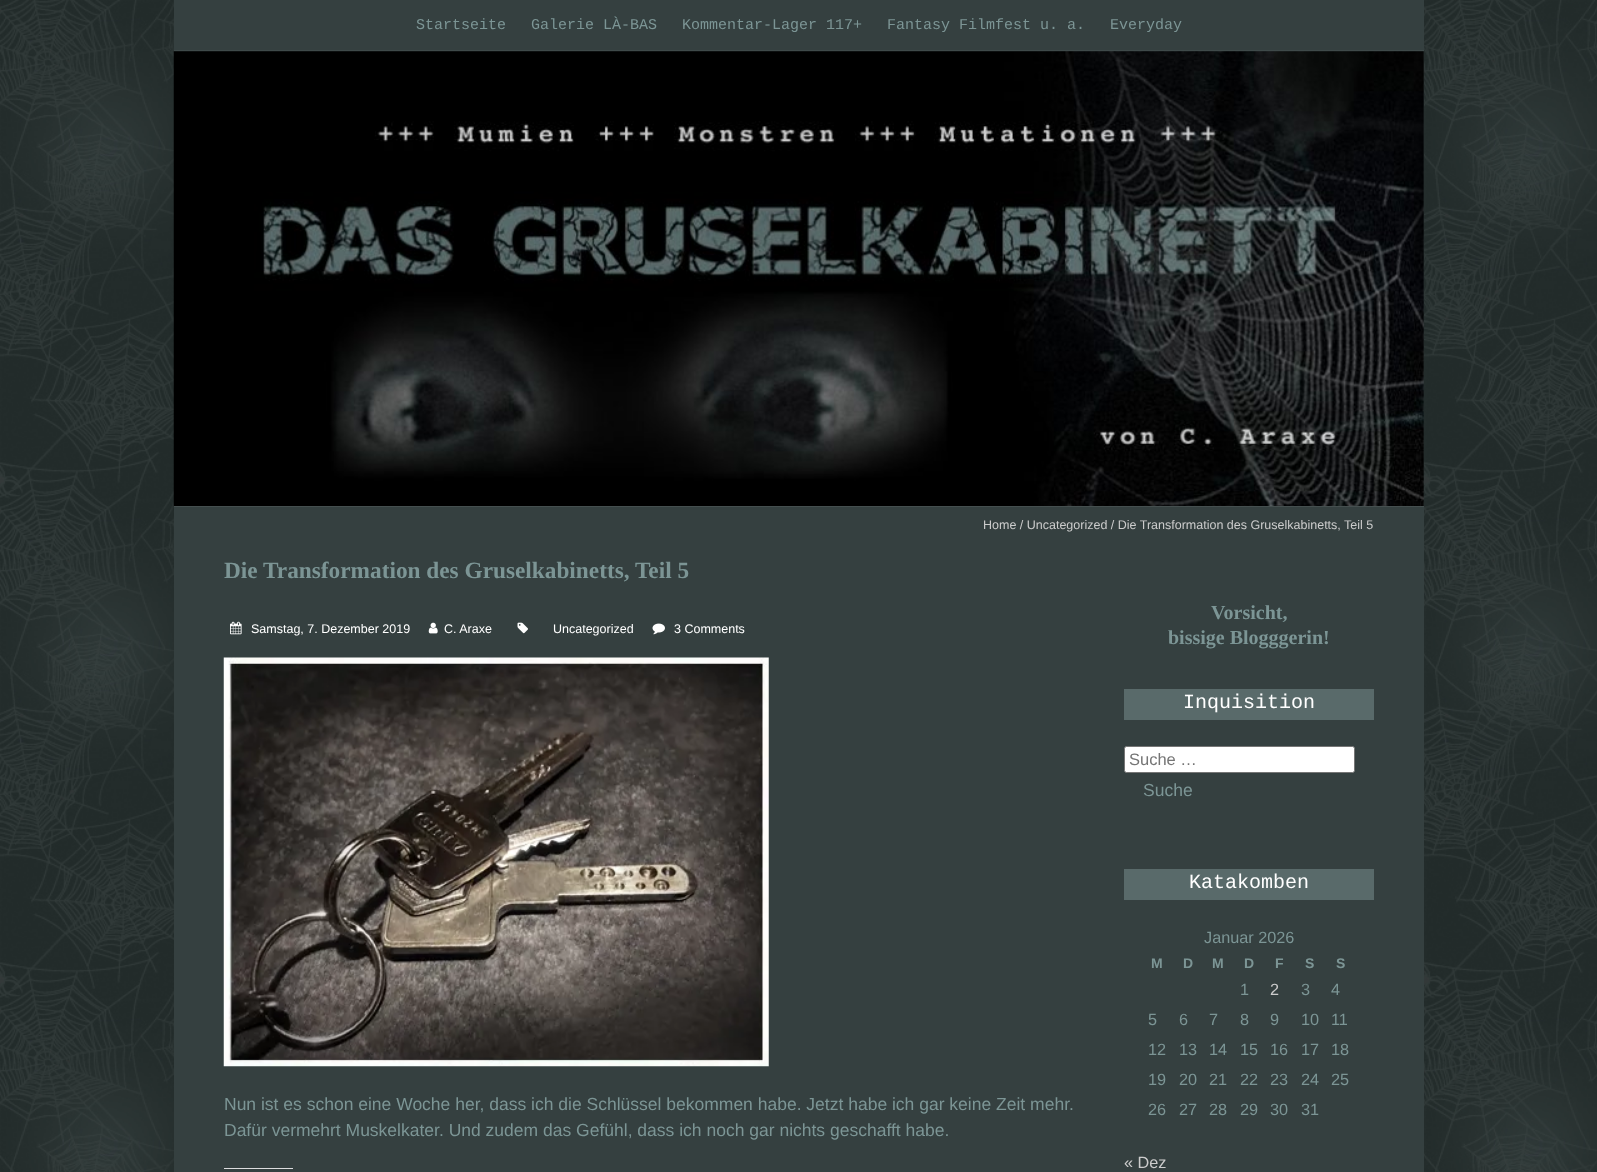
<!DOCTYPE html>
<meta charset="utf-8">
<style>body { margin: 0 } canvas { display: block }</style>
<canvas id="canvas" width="1597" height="1172"></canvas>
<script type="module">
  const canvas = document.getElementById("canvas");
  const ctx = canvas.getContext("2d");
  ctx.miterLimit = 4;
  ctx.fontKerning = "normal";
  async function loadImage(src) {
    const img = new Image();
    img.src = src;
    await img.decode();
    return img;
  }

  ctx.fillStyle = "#ffffff";
  ctx.fillRect(0, 0, 1597, 1172);
  ctx.drawImage(await loadImage("img1.png"), 0, 0, 1597, 1172);
  ctx.fillStyle = "#354040";
  ctx.fillRect(174, 0, 1250, 1172);
  ctx.fillStyle = "#3f4a4a";
  ctx.fillRect(174, 50, 1250, 1);
  ctx.font = "15px Liberation Mono";
  ctx.fillStyle = "#7c9595";
  ctx.fillText("Startseite", 416, 29);
  ctx.fillText("Galerie LÀ-BAS", 531, 29);
  ctx.fillText("Kommentar-Lager 117+", 682, 29);
  ctx.fillText("Fantasy Filmfest u. a.", 887, 29);
  ctx.fillText("Everyday", 1110, 29);
  ctx.drawImage(await loadImage("img2.png"), 173, 51, 1251, 456);
  ctx.fillStyle = "#454f4f";
  ctx.fillRect(174, 506, 1250, 1);
  ctx.font = "12.5px Liberation Sans";
  ctx.fillStyle = "#cccccc";
  ctx.fillText("Home / Uncategorized / Die Transformation des Gruselkabinetts, Teil 5", 983, 529);
  ctx.font = "bold 23.3px Liberation Serif";
  ctx.fillStyle = "#7c9595";
  ctx.fillText("Die Transformation des Gruselkabinetts, Teil 5", 224, 578);
  ctx.drawImage(await loadImage("img3.png"), 230, 621, 12, 14);
  ctx.font = "12.5px Liberation Sans";
  ctx.fillStyle = "#ffffff";
  ctx.fillText("Samstag, 7. Dezember 2019", 251, 633);
  ctx.drawImage(await loadImage("img4.png"), 428, 622, 10, 12);
  ctx.fillText("C. Araxe", 444, 633);
  ctx.drawImage(await loadImage("img5.png"), 517, 622, 11, 12);
  ctx.fillText("Uncategorized", 553, 633);
  ctx.drawImage(await loadImage("img6.png"), 652, 623, 13, 12);
  ctx.fillText("3 Comments", 674, 633);
  ctx.drawImage(await loadImage("img7.png"), 223, 657, 546, 410);
  ctx.font = "17.5px Liberation Sans";
  ctx.fillStyle = "#7c9595";
  ctx.fillText("Nun ist es schon eine Woche her, dass ich die Schlüssel bekommen habe. Jetzt habe ich gar keine Zeit mehr.", 224, 1110);
  ctx.fillText("Dafür vermehrt Muskelkater. Und zudem das Gefühl, dass ich noch gar nichts geschafft habe.", 224, 1136);
  ctx.fillStyle = "#dcdcde";
  ctx.fillRect(224, 1168, 69, 1);
  ctx.font = "bold 20px Liberation Serif";
  ctx.fillStyle = "#7c9595";
  ctx.fillText("Vorsicht,", 1211, 619);
  ctx.fillText("bissige Blogggerin!", 1168, 644);
  ctx.fillStyle = "#596a6a";
  ctx.fillRect(1124, 689, 250, 31);
  ctx.font = "20px Liberation Mono";
  ctx.fillStyle = "#ffffff";
  ctx.fillText("Inquisition", 1183, 708);
  ctx.beginPath();
  ctx.roundRect(1124.5, 746.5, 230, 26, 2);
  ctx.fill();
  ctx.strokeStyle = "#767676";
  ctx.stroke();
  ctx.font = "16.5px Liberation Sans";
  ctx.fillStyle = "#757575";
  ctx.fillText("Suche …", 1129, 765);
  ctx.font = "17.5px Liberation Sans";
  ctx.fillStyle = "#7c9595";
  ctx.fillText("Suche", 1143, 796);
  ctx.fillStyle = "#596a6a";
  ctx.fillRect(1124, 869, 250, 31);
  ctx.font = "20px Liberation Mono";
  ctx.fillStyle = "#ffffff";
  ctx.fillText("Katakomben", 1189, 888);
  ctx.font = "16.25px Liberation Sans";
  ctx.fillStyle = "#7c9595";
  ctx.fillText("Januar 2026", 1204, 943);
  ctx.font = "bold 14px Liberation Sans";
  ctx.fillText("M", 1151, 968);
  ctx.fillText("D", 1183, 968);
  ctx.fillText("M", 1212, 968);
  ctx.fillText("D", 1244, 968);
  ctx.fillText("F", 1275, 968);
  ctx.fillText("S", 1305, 968);
  ctx.fillText("S", 1336, 968);
  ctx.font = "16.25px Liberation Sans";
  ctx.fillText("1", 1240, 995);
  ctx.fillStyle = "#cccccc";
  ctx.fillText("2", 1270, 995);
  ctx.fillStyle = "#7c9595";
  ctx.fillText("3", 1301, 995);
  ctx.fillText("4", 1331, 995);
  ctx.fillText("5", 1148, 1025);
  ctx.fillText("6", 1179, 1025);
  ctx.fillText("7", 1209, 1025);
  ctx.fillText("8", 1240, 1025);
  ctx.fillText("9", 1270, 1025);
  ctx.fillText("10", 1301, 1025);
  ctx.fillText("11", 1331, 1025);
  ctx.fillText("12", 1148, 1055);
  ctx.fillText("13", 1179, 1055);
  ctx.fillText("14", 1209, 1055);
  ctx.fillText("15", 1240, 1055);
  ctx.fillText("16", 1270, 1055);
  ctx.fillText("17", 1301, 1055);
  ctx.fillText("18", 1331, 1055);
  ctx.fillText("19", 1148, 1085);
  ctx.fillText("20", 1179, 1085);
  ctx.fillText("21", 1209, 1085);
  ctx.fillText("22", 1240, 1085);
  ctx.fillText("23", 1270, 1085);
  ctx.fillText("24", 1301, 1085);
  ctx.fillText("25", 1331, 1085);
  ctx.fillText("26", 1148, 1115);
  ctx.fillText("27", 1179, 1115);
  ctx.fillText("28", 1209, 1115);
  ctx.fillText("29", 1240, 1115);
  ctx.fillText("30", 1270, 1115);
  ctx.fillText("31", 1301, 1115);
  ctx.fillStyle = "#cccccc";
  ctx.fillText("« Dez", 1124, 1168);
</script>
